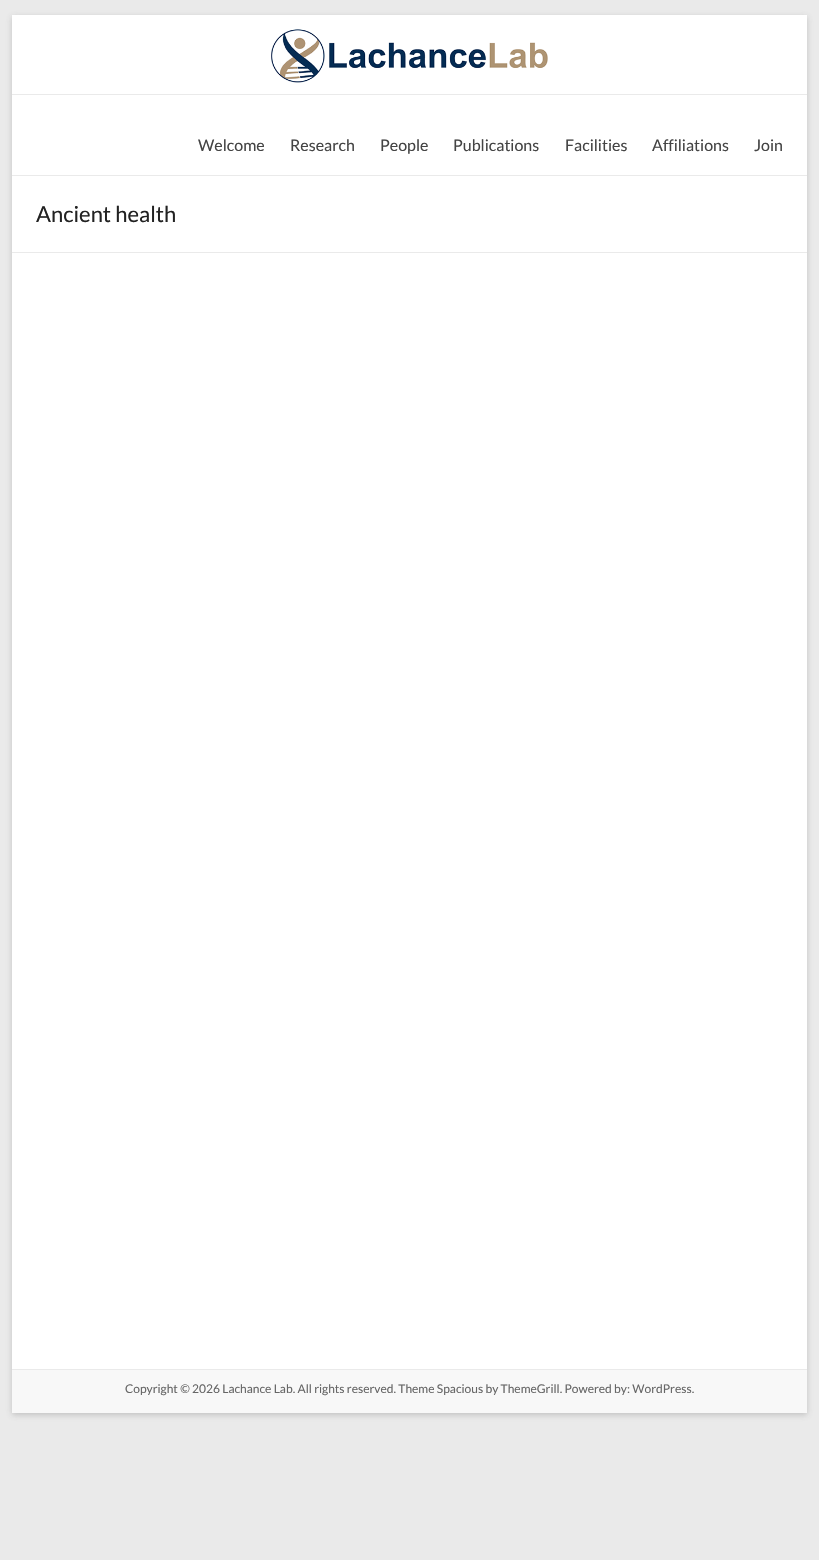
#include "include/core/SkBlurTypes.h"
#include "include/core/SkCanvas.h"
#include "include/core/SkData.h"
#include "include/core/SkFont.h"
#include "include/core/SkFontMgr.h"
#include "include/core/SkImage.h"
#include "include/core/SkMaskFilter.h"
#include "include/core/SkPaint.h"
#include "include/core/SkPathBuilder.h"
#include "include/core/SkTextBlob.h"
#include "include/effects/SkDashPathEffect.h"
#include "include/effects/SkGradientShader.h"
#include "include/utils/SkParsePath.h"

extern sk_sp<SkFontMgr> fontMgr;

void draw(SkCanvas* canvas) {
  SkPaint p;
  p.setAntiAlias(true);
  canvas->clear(SkColorSetRGB(234, 234, 234));
  p.setColor(SkColorSetARGB(77, 100, 100, 100));
  p.setMaskFilter(SkMaskFilter::MakeBlur(kNormal_SkBlurStyle, 3));
  canvas->drawRect(SkRect::MakeLTRB(12, 17, 807, 1415), p);
  p.setMaskFilter(nullptr);
  p.setColor(SK_ColorWHITE);
  canvas->drawRect(SkRect::MakeLTRB(12, 15, 807, 1369), p);
  canvas->drawImageRect(SkImages::DeferredFromEncodedData(SkData::MakeFromFileName("images/1.png")), SkRect::MakeLTRB(271, 29, 548, 83), SkSamplingOptions());
  p.setColor(SkColorSetRGB(234, 234, 234));
  canvas->drawRect(SkRect::MakeLTRB(12, 94, 807, 95), p);
  canvas->drawRect(SkRect::MakeLTRB(12, 175, 807, 176), p);
  canvas->drawRect(SkRect::MakeLTRB(12, 252, 807, 253), p);
  p.setColor(SkColorSetRGB(248, 248, 248));
  canvas->drawRect(SkRect::MakeLTRB(12, 1370, 807, 1413), p);
  p.setColor(SkColorSetRGB(234, 234, 234));
  canvas->drawRect(SkRect::MakeLTRB(12, 1369, 807, 1370), p);
  SkFont font1(fontMgr->matchFamilyStyle("Lato", SkFontStyle::Normal()), 16);
  font1.setSubpixel(true);
  p.setColor(SkColorSetRGB(68, 68, 68));
  canvas->drawString("Welcome", 198, 151, font1, p);
  canvas->drawString("Research", 290, 151, font1, p);
  canvas->drawString("People", 380, 151, font1, p);
  canvas->drawString("Publications", 453, 151, font1, p);
  canvas->drawString("Facilities", 565, 151, font1, p);
  canvas->drawString("Affiliations", 652, 151, font1, p);
  canvas->drawString("Join", 754, 151, font1, p);
  SkFont font2(fontMgr->matchFamilyStyle("Lato", SkFontStyle::Normal()), 22);
  font2.setSubpixel(true);
  p.setColor(SkColorSetRGB(34, 34, 34));
  canvas->drawString("Ancient health", 36, 222, font2, p);
  SkFont font3(fontMgr->matchFamilyStyle("Lato", SkFontStyle::Normal()), 12);
  font3.setSubpixel(true);
  p.setColor(SkColorSetRGB(102, 102, 102));
  canvas->drawString("Copyright © 2026 Lachance Lab. All rights reserved. Theme Spacious by ThemeGrill. Powered by: WordPress.", 125, 1393, font3, p);
}
